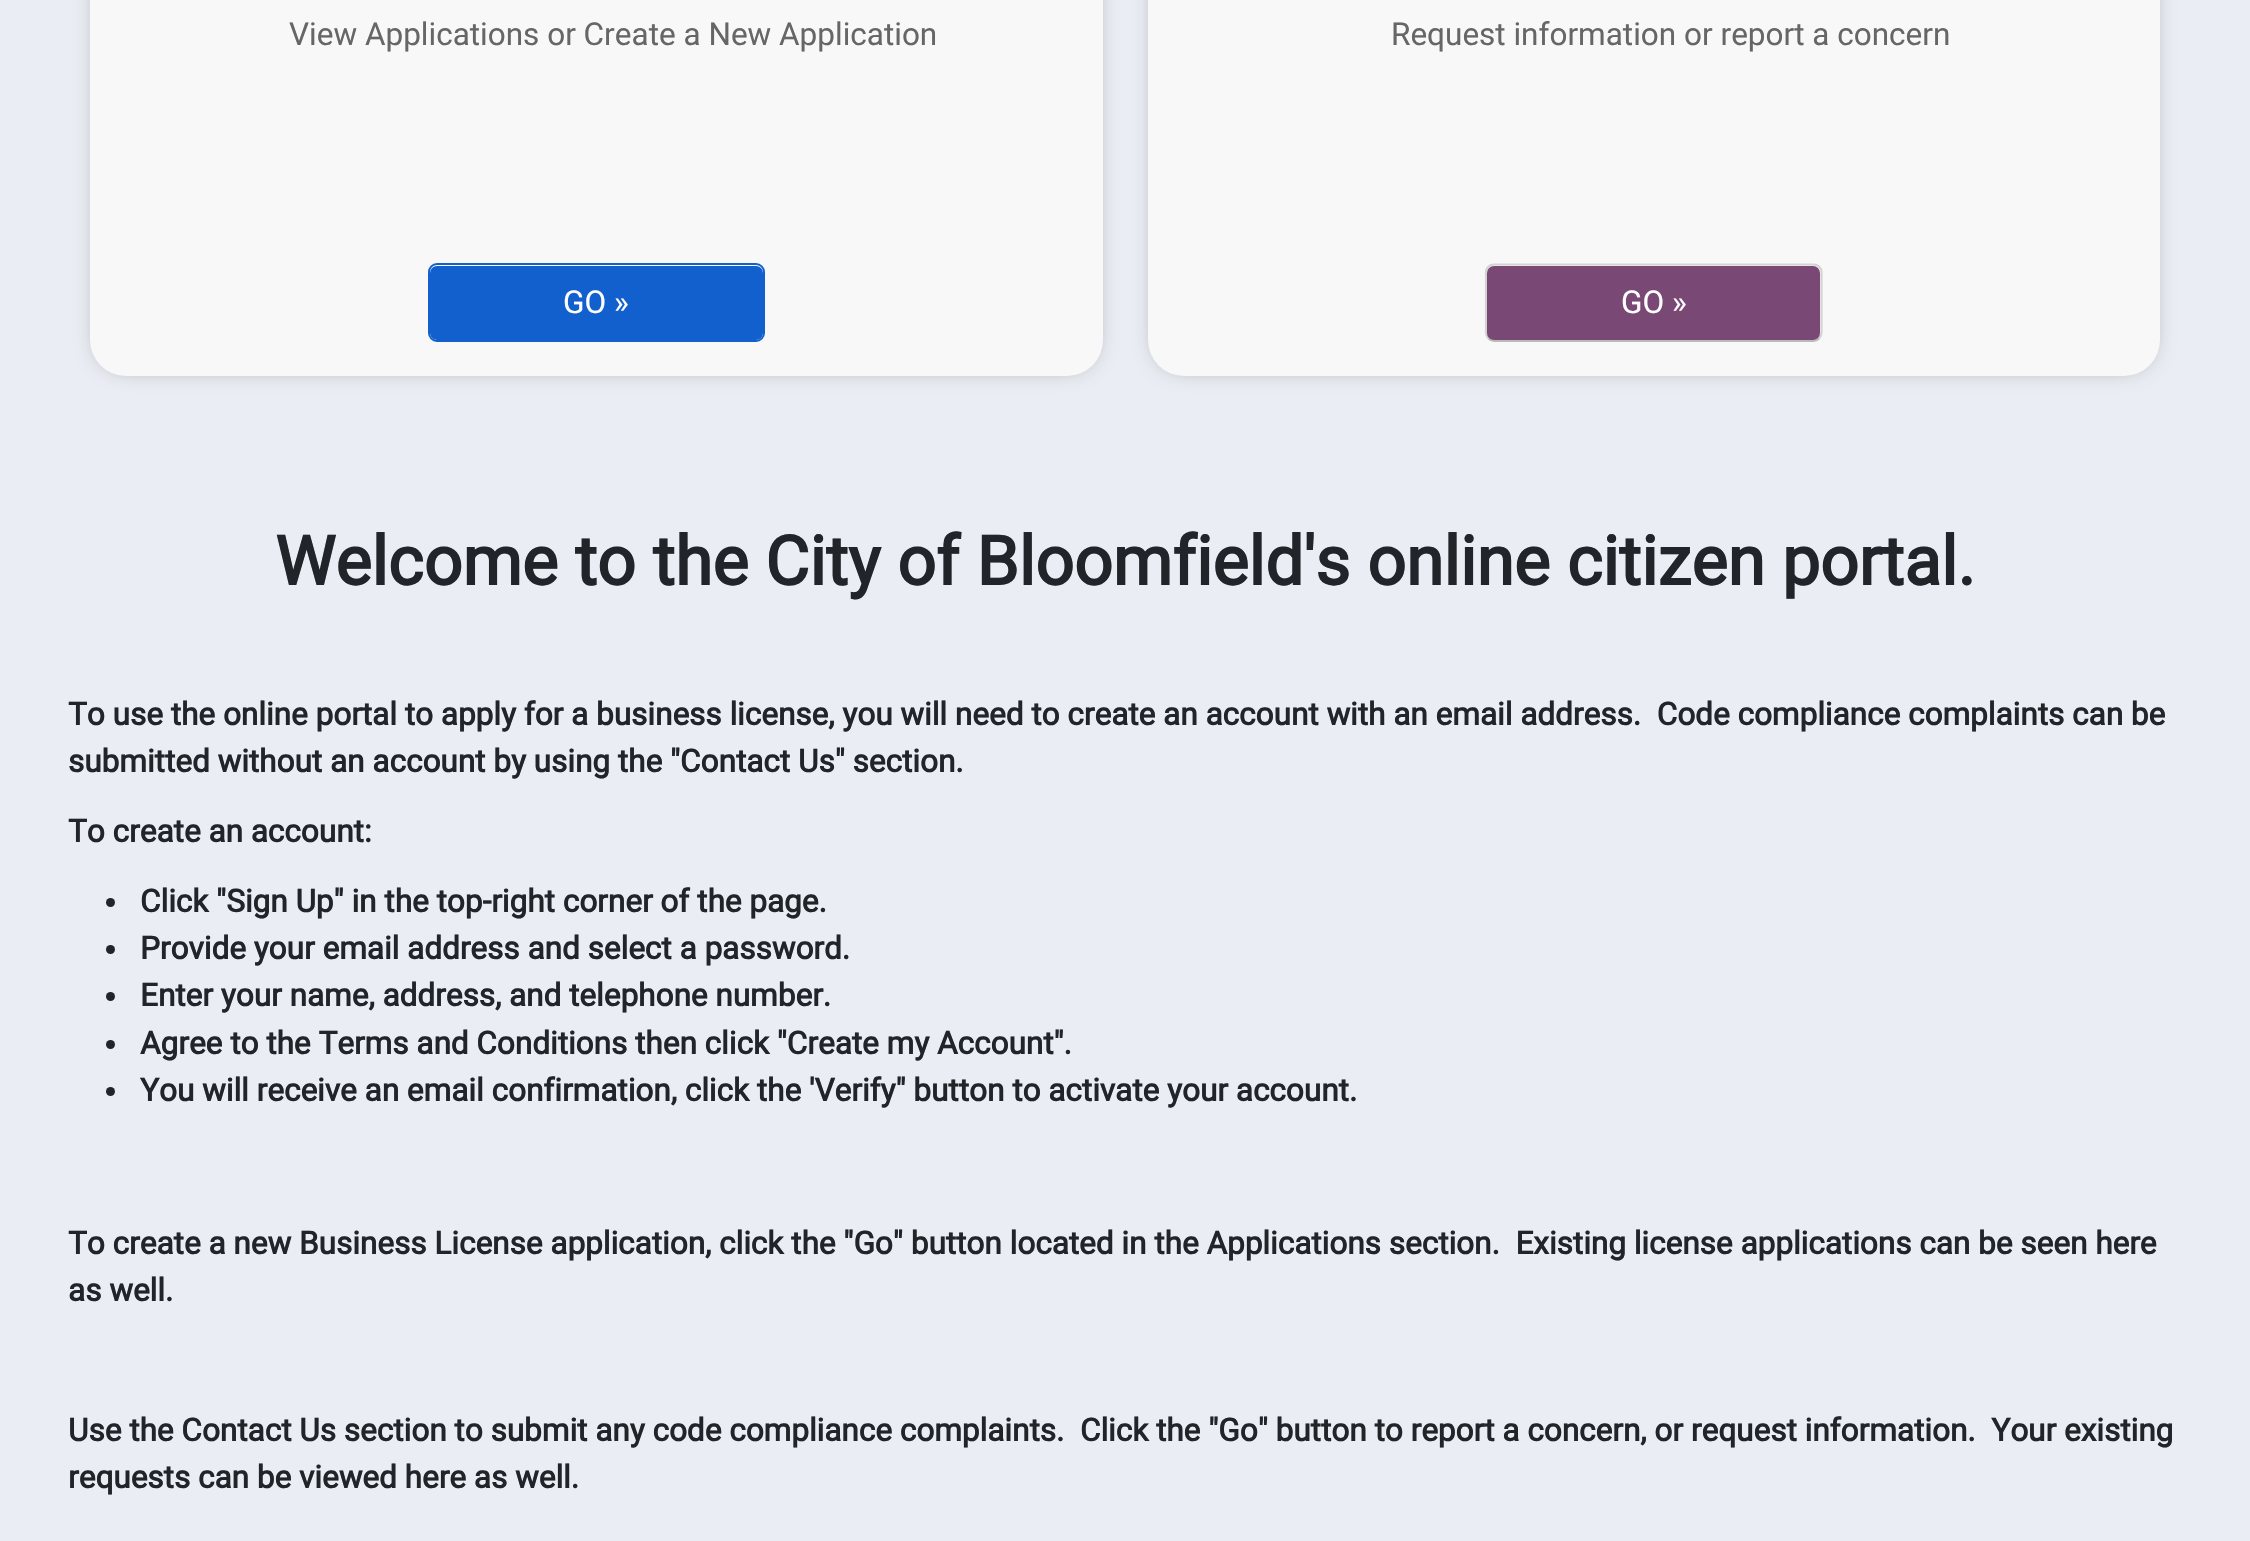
#include "include/core/SkBlurTypes.h"
#include "include/core/SkCanvas.h"
#include "include/core/SkData.h"
#include "include/core/SkFont.h"
#include "include/core/SkFontMgr.h"
#include "include/core/SkImage.h"
#include "include/core/SkMaskFilter.h"
#include "include/core/SkPaint.h"
#include "include/core/SkPathBuilder.h"
#include "include/core/SkTextBlob.h"
#include "include/effects/SkDashPathEffect.h"
#include "include/effects/SkGradientShader.h"
#include "include/utils/SkParsePath.h"

extern sk_sp<SkFontMgr> fontMgr;

void draw(SkCanvas* canvas) {
  SkPaint p;
  p.setAntiAlias(true);
  canvas->clear(SkColorSetRGB(234, 238, 244));
  p.setColor(SkColorSetARGB(102, 0, 0, 0));
  p.setMaskFilter(SkMaskFilter::MakeBlur(kNormal_SkBlurStyle, 11));
  canvas->drawRoundRect(SkRect::MakeLTRB(99, -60, 1094, 367), 27, 27, p);
  p.setMaskFilter(nullptr);
  p.setColor(SkColorSetRGB(248, 248, 248));
  canvas->drawRoundRect(SkRect::MakeLTRB(90, -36, 1103, 376), 36, 36, p);
  p.setColor(SkColorSetRGB(18, 96, 206));
  canvas->drawRoundRect(SkRect::MakeLTRB(430, 266, 763, 340), 7, 7, p);
  p.setStyle(SkPaint::kStroke_Style);
  p.setStrokeWidth(2);
  canvas->drawRoundRect(SkRect::MakeLTRB(429, 264, 764, 341), 8, 8, p);
  p.setStyle(SkPaint::kFill_Style);
  p.setColor(SkColorSetARGB(102, 0, 0, 0));
  p.setMaskFilter(SkMaskFilter::MakeBlur(kNormal_SkBlurStyle, 11));
  canvas->drawRoundRect(SkRect::MakeLTRB(1157, -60, 2151, 367), 27, 27, p);
  p.setMaskFilter(nullptr);
  p.setColor(SkColorSetRGB(248, 248, 248));
  canvas->drawRoundRect(SkRect::MakeLTRB(1148, -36, 2160, 376), 36, 36, p);
  p.setColor(SkColorSetRGB(121, 72, 117));
  canvas->drawRoundRect(SkRect::MakeLTRB(1487, 266, 1820, 340), 7, 7, p);
  p.setStyle(SkPaint::kStroke_Style);
  p.setStrokeWidth(2.2f);
  p.setColor(SkColorSetARGB(64, 0, 0, 0));
  canvas->drawPath(SkPathBuilder().moveTo(1819, 338.5f).cubicTo(1817.5f, 340, 1815.5f, 341, 1813.5f, 341).lineTo(1494, 341).cubicTo(1492, 341, 1490, 340, 1488.5f, 338.5f).detach(), p);
  p.setColor(SkColorSetARGB(38, 0, 0, 0));
  canvas->drawPath(SkPathBuilder().moveTo(1488.5f, 338.5f).cubicTo(1487, 337, 1486, 335, 1486, 333).lineTo(1486, 272).cubicTo(1486, 270, 1487, 268, 1488.5f, 266.5f).cubicTo(1490, 265, 1492, 264.5f, 1494, 264.5f).lineTo(1813.5f, 264.5f).cubicTo(1815.5f, 264.5f, 1817.5f, 265, 1819, 266.5f).cubicTo(1820.5f, 268, 1821.5f, 270, 1821.5f, 272).lineTo(1821.5f, 333).cubicTo(1821.5f, 335, 1820.5f, 337, 1819, 338.5f).detach(), p);
  p.setStyle(SkPaint::kFill_Style);
  p.setColor(SkColorSetRGB(33, 37, 41));
  canvas->drawCircle(110.5f, 902.5f, 4.5f, p);
  canvas->drawCircle(110.5f, 949.5f, 4.5f, p);
  canvas->drawCircle(110.5f, 996.5f, 4.5f, p);
  canvas->drawCircle(110.5f, 1044.5f, 4.5f, p);
  canvas->drawCircle(110.5f, 1091.5f, 4.5f, p);
  SkFont font1(fontMgr->matchFamilyStyle("Roboto", SkFontStyle::Normal()), 31.5f);
  font1.setSubpixel(true);
  p.setColor(SkColorSetRGB(102, 102, 102));
  canvas->drawString("View Applications or Create a New Application", 289, 45, font1, p);
  p.setColor(SK_ColorWHITE);
  canvas->drawString("GO »", 563, 313, font1, p);
  p.setColor(SkColorSetRGB(102, 102, 102));
  canvas->drawString("Request information or report a concern", 1391, 45, font1, p);
  p.setColor(SK_ColorWHITE);
  canvas->drawString("GO »", 1621, 313, font1, p);
  SkFont font2(fontMgr->matchFamilyStyle("Roboto", SkFontStyle::Bold()), 67.95f);
  font2.setSubpixel(true);
  p.setColor(SkColorSetRGB(33, 37, 41));
  canvas->drawString("Welcome to the City of Bloomfield's online citizen portal.", 275, 585, font2, p);
  SkFont font3(fontMgr->matchFamilyStyle("Roboto", SkFontStyle::Bold()), 31.5f);
  font3.setSubpixel(true);
  canvas->drawString("To use the online portal to apply for a business license, you will need to create an account with an email address.  Code compliance complaints can be", 68, 725, font3, p);
  canvas->drawString("submitted without an account by using the \"Contact Us\" section.", 68, 772, font3, p);
  canvas->drawString("To create an account:", 68, 842, font3, p);
  canvas->drawString("Click \"Sign Up\" in the top-right corner of the page.", 140, 912, font3, p);
  canvas->drawString("Provide your email address and select a password.", 140, 959, font3, p);
  canvas->drawString("Enter your name, address, and telephone number.", 140, 1006, font3, p);
  canvas->drawString("Agree to the Terms and Conditions then click \"Create my Account\".", 140, 1054, font3, p);
  canvas->drawString("You will receive an email confirmation, click the 'Verify\" button to activate your account.", 140, 1101, font3, p);
  canvas->drawString("To create a new Business License application, click the \"Go\" button located in the Applications section.  Existing license applications can be seen here", 68, 1254, font3, p);
  canvas->drawString("as well.", 68, 1301, font3, p);
  canvas->drawString("Use the Contact Us section to submit any code compliance complaints.  Click the \"Go\" button to report a concern, or request information.  Your existing", 68, 1441, font3, p);
  canvas->drawString("requests can be viewed here as well.", 68, 1488, font3, p);
}
